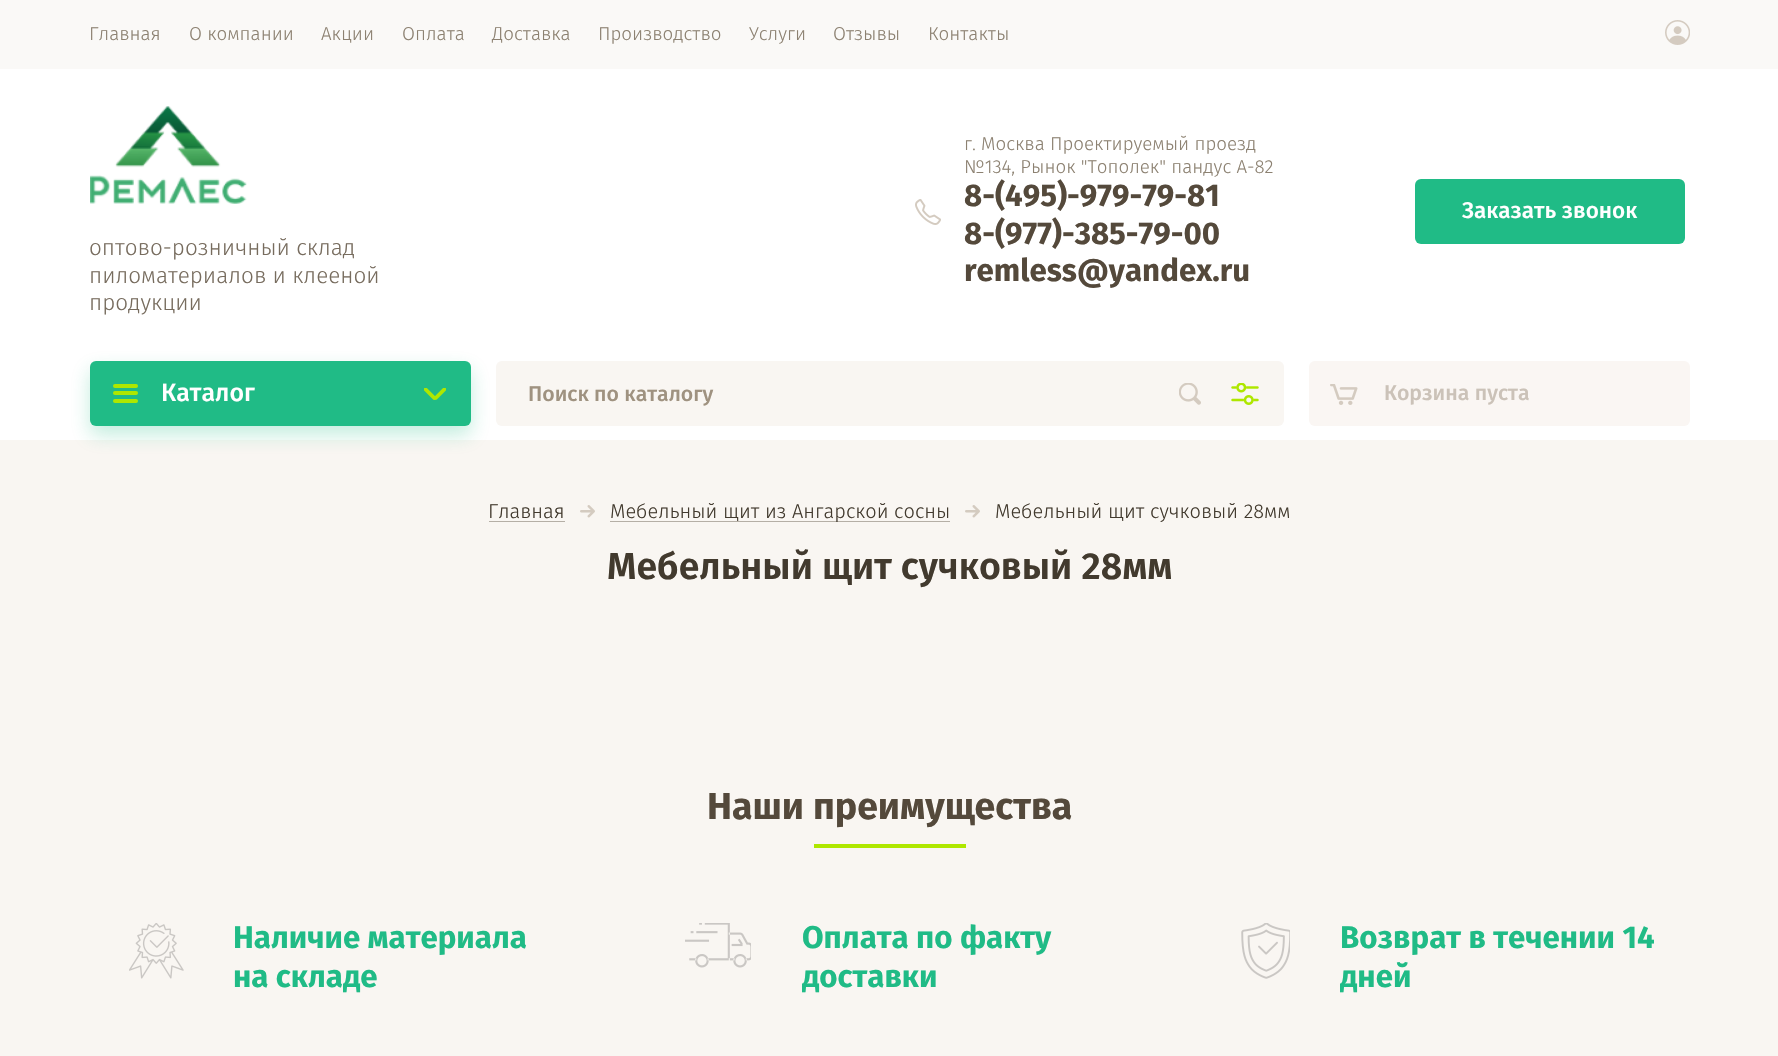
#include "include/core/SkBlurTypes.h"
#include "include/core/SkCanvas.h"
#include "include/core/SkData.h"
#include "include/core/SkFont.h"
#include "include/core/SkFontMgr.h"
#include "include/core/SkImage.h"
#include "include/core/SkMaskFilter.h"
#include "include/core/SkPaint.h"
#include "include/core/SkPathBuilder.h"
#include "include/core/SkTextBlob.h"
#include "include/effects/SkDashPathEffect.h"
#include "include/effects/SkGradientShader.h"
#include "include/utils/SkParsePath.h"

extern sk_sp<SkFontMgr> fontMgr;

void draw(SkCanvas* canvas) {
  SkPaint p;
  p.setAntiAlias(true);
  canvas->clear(SkColorSetRGB(249, 246, 242));
  p.setColor(SK_ColorWHITE);
  canvas->drawRect(SkRect::MakeLTRB(0, 69, 1778, 440), p);
  p.setColor(SkColorSetRGB(250, 249, 247));
  canvas->drawRect(SkRect::MakeLTRB(0, 0, 1778, 69), p);
  canvas->drawImageRect(SkImages::DeferredFromEncodedData(SkData::MakeFromFileName("images/1.png")), SkRect::MakeLTRB(1665, 20, 1690, 45), SkSamplingOptions());
  canvas->drawImageRect(SkImages::DeferredFromEncodedData(SkData::MakeFromFileName("images/2.png")), SkRect::MakeLTRB(90, 106, 247, 204), SkSamplingOptions());
  canvas->drawImageRect(SkImages::DeferredFromEncodedData(SkData::MakeFromFileName("images/3.png")), SkRect::MakeLTRB(915, 199, 941, 225), SkSamplingOptions());
  p.setColor(SkColorSetRGB(32, 187, 134));
  canvas->drawRoundRect(SkRect::MakeLTRB(1415, 179, 1685, 244), 6, 6, p);
  p.setColor(SkColorSetARGB(69, 32, 187, 134));
  p.setMaskFilter(SkMaskFilter::MakeBlur(kNormal_SkBlurStyle, 9.5f));
  canvas->drawRoundRect(SkRect::MakeLTRB(90, 370, 471, 435), 6, 6, p);
  p.setMaskFilter(nullptr);
  p.setColor(SkColorSetRGB(32, 187, 134));
  canvas->drawRoundRect(SkRect::MakeLTRB(90, 361, 471, 426), 6, 6, p);
  p.setColor(SkColorSetRGB(174, 231, 0));
  canvas->drawRoundRect(SkRect::MakeLTRB(113, 391, 138, 395), 2, 2, p);
  canvas->drawRoundRect(SkRect::MakeLTRB(113, 384, 138, 388), 2, 2, p);
  canvas->drawRoundRect(SkRect::MakeLTRB(113, 399, 138, 403), 2, 2, p);
  canvas->drawImageRect(SkImages::DeferredFromEncodedData(SkData::MakeFromFileName("images/4.png")), SkRect::MakeLTRB(424, 388, 446, 400), SkSamplingOptions());
  p.setColor(SkColorSetRGB(249, 246, 242));
  canvas->drawRoundRect(SkRect::MakeLTRB(496, 361, 1284, 426), 6, 6, p);
  canvas->drawImageRect(SkImages::DeferredFromEncodedData(SkData::MakeFromFileName("images/5.png")), SkRect::MakeLTRB(1179, 383, 1201, 405), SkSamplingOptions());
  canvas->drawImageRect(SkImages::DeferredFromEncodedData(SkData::MakeFromFileName("images/6.png")), SkRect::MakeLTRB(1231, 383, 1259, 405), SkSamplingOptions());
  p.setColor(SkColorSetRGB(250, 246, 243));
  canvas->drawRoundRect(SkRect::MakeLTRB(1309, 361, 1690, 426), 6, 6, p);
  canvas->drawImageRect(SkImages::DeferredFromEncodedData(SkData::MakeFromFileName("images/7.png")), SkRect::MakeLTRB(1330, 384, 1358, 405), SkSamplingOptions());
  p.setColor(SkColorSetRGB(181, 175, 166));
  canvas->drawRect(SkRect::MakeLTRB(489, 521, 565, 522), p);
  canvas->drawImageRect(SkImages::DeferredFromEncodedData(SkData::MakeFromFileName("images/8.png")), SkRect::MakeLTRB(580, 505, 595, 518), SkSamplingOptions());
  canvas->drawRect(SkRect::MakeLTRB(610, 521, 950, 522), p);
  canvas->drawImageRect(SkImages::DeferredFromEncodedData(SkData::MakeFromFileName("images/8.png")), SkRect::MakeLTRB(965, 505, 980, 518), SkSamplingOptions());
  p.setColor(SkColorSetRGB(174, 231, 0));
  canvas->drawRect(SkRect::MakeLTRB(814, 844, 966, 848), p);
  canvas->drawImageRect(SkImages::DeferredFromEncodedData(SkData::MakeFromFileName("images/9.png")), SkRect::MakeLTRB(129, 923, 184, 979), SkSamplingOptions());
  canvas->drawImageRect(SkImages::DeferredFromEncodedData(SkData::MakeFromFileName("images/10.png")), SkRect::MakeLTRB(685, 923, 751, 968), SkSamplingOptions());
  canvas->drawImageRect(SkImages::DeferredFromEncodedData(SkData::MakeFromFileName("images/11.png")), SkRect::MakeLTRB(1241, 923, 1290, 979), SkSamplingOptions());
  SkFont font1(fontMgr->matchFamilyStyle("Fira Sans", SkFontStyle(300, SkFontStyle::kNormal_Width, SkFontStyle::kUpright_Slant)), 18.75f);
  font1.setSubpixel(true);
  p.setColor(SkColorSetRGB(140, 129, 113));
  canvas->drawString("Главная", 89, 40, font1, p);
  canvas->drawString("О компании", 189, 40, font1, p);
  canvas->drawString("Акции", 321, 40, font1, p);
  canvas->drawString("Оплата", 402, 40, font1, p);
  canvas->drawString("Доставка", 492, 40, font1, p);
  canvas->drawString("Производство", 598, 40, font1, p);
  canvas->drawString("Услуги", 749, 40, font1, p);
  canvas->drawString("Отзывы", 833, 40, font1, p);
  canvas->drawString("Контакты", 928, 40, font1, p);
  SkFont font2(fontMgr->matchFamilyStyle("Fira Sans", SkFontStyle(300, SkFontStyle::kNormal_Width, SkFontStyle::kUpright_Slant)), 22.5f);
  font2.setSubpixel(true);
  p.setColor(SkColorSetRGB(119, 108, 94));
  canvas->drawString("оптово-розничный cклад", 89, 255, font2, p);
  canvas->drawString("пиломатериалов и клееной", 89, 283, font2, p);
  canvas->drawString("продукции", 89, 310, font2, p);
  p.setColor(SkColorSetRGB(140, 129, 113));
  canvas->drawString("г. Москва Проектируемый проезд", 964, 150, font1, p);
  canvas->drawString("№134, Рынок \"Тополек\" пандус А-82", 964, 173, font1, p);
  SkFont font3(fontMgr->matchFamilyStyle("Fira Sans", SkFontStyle::Bold()), 31.25f);
  font3.setSubpixel(true);
  p.setColor(SkColorSetRGB(84, 73, 59));
  canvas->drawString("8-(495)-979-79-81", 964, 206, font3, p);
  canvas->drawString("8-(977)-385-79-00", 964, 244, font3, p);
  canvas->drawString("remless@yandex.ru", 964, 281, font3, p);
  SkFont font4(fontMgr->matchFamilyStyle("Fira Sans", SkFontStyle(500, SkFontStyle::kNormal_Width, SkFontStyle::kUpright_Slant)), 22.5f);
  font4.setSubpixel(true);
  p.setColor(SK_ColorWHITE);
  canvas->drawString("Заказать звонок", 1462, 218, font4, p);
  SkFont font5(fontMgr->matchFamilyStyle("Fira Sans", SkFontStyle(500, SkFontStyle::kNormal_Width, SkFontStyle::kUpright_Slant)), 25);
  font5.setSubpixel(true);
  canvas->drawString("Каталог", 161, 401, font5, p);
  SkFont font6(fontMgr->matchFamilyStyle("Fira Sans", SkFontStyle(500, SkFontStyle::kNormal_Width, SkFontStyle::kUpright_Slant)), 21.25f);
  font6.setSubpixel(true);
  p.setColor(SkColorSetRGB(159, 146, 128));
  canvas->drawString("Поиск по каталогу", 528, 401, font6, p);
  p.setColor(SkColorSetRGB(203, 194, 184));
  canvas->drawString("Корзина пуста", 1384, 400, font6, p);
  SkFont font7(fontMgr->matchFamilyStyle("Fira Sans", SkFontStyle(300, SkFontStyle::kNormal_Width, SkFontStyle::kUpright_Slant)), 20);
  font7.setSubpixel(true);
  p.setColor(SkColorSetRGB(66, 58, 46));
  canvas->drawString("Главная", 488, 518, font7, p);
  canvas->drawString("Мебельный щит из Ангарской сосны", 610, 518, font7, p);
  canvas->drawString("Мебельный щит сучковый 28мм", 995, 518, font7, p);
  SkFont font8(fontMgr->matchFamilyStyle("Fira Sans", SkFontStyle(600, SkFontStyle::kNormal_Width, SkFontStyle::kUpright_Slant)), 37.5f);
  font8.setSubpixel(true);
  canvas->drawString("Мебельный щит сучковый 28мм", 607, 579, font8, p);
  SkFont font9(fontMgr->matchFamilyStyle("Fira Sans", SkFontStyle::Bold()), 37.5f);
  font9.setSubpixel(true);
  p.setColor(SkColorSetRGB(84, 73, 59));
  canvas->drawString("Наши преимущества", 707, 819, font9, p);
  p.setColor(SkColorSetRGB(32, 187, 134));
  canvas->drawString("Наличие материала", 233, 948, font3, p);
  canvas->drawString("на складе", 233, 987, font3, p);
  canvas->drawString("Оплата по факту", 802, 948, font3, p);
  canvas->drawString("доставки", 802, 987, font3, p);
  canvas->drawString("Возврат в течении 14", 1340, 948, font3, p);
  canvas->drawString("дней", 1340, 987, font3, p);
}
